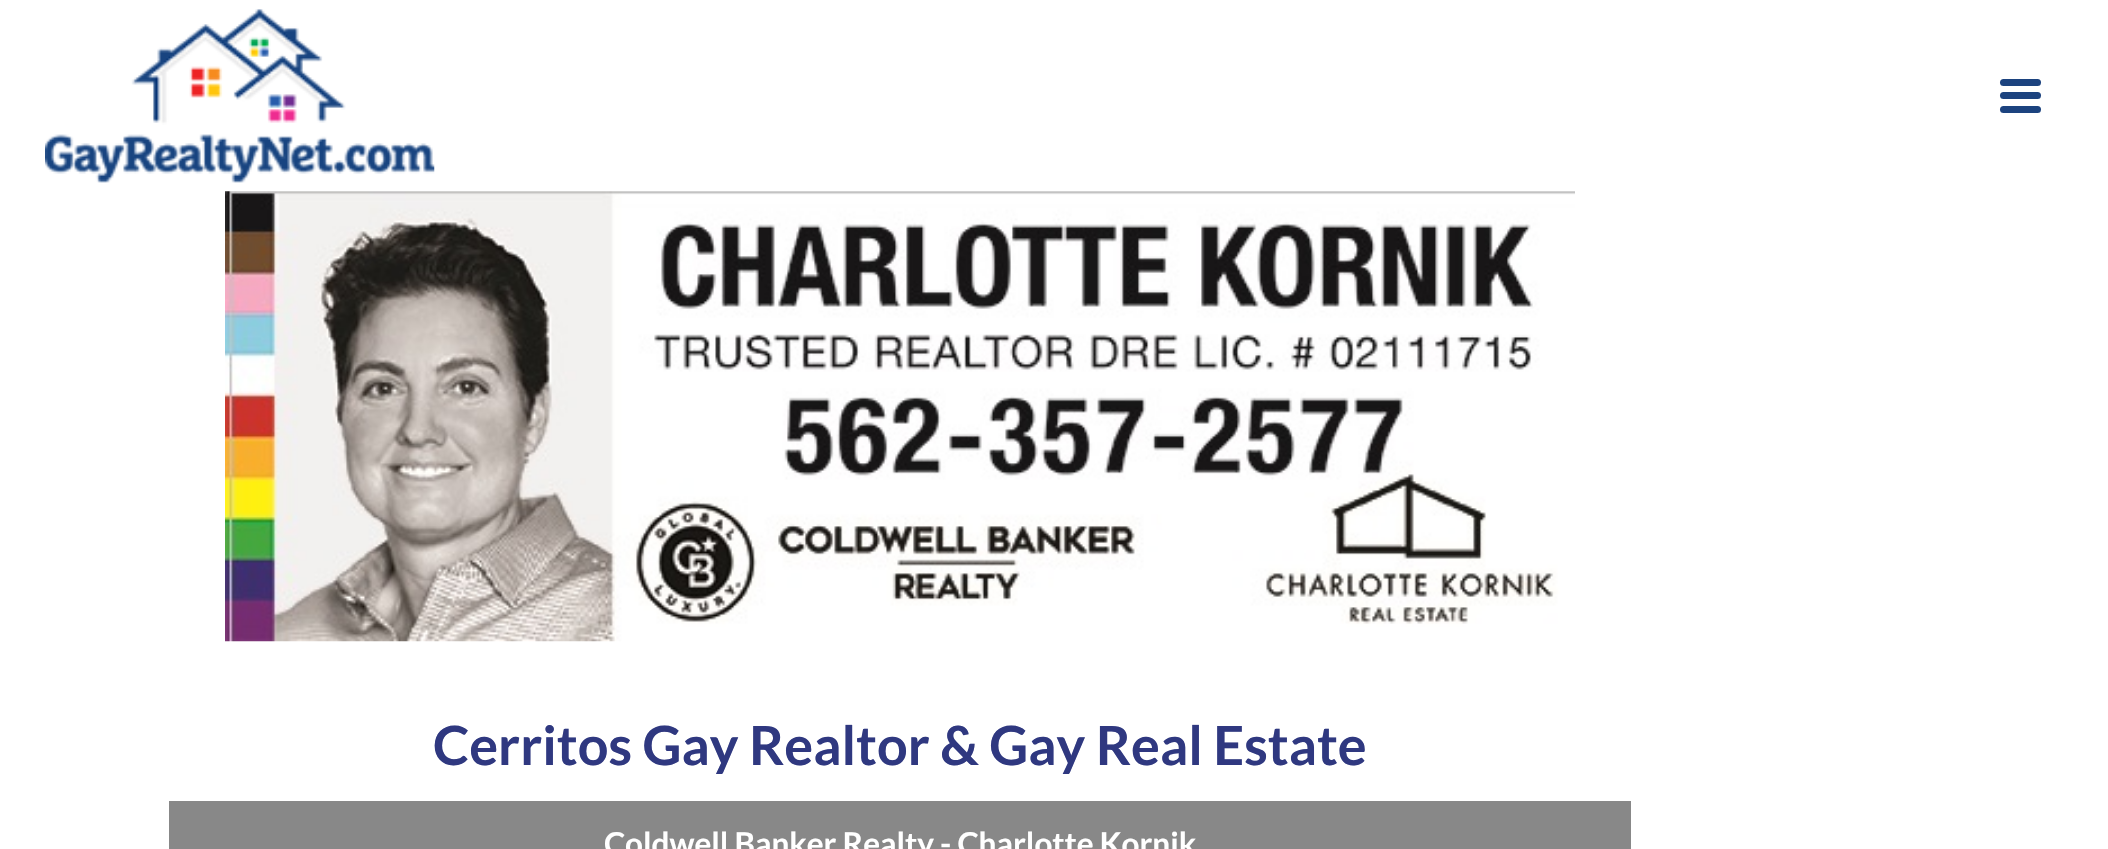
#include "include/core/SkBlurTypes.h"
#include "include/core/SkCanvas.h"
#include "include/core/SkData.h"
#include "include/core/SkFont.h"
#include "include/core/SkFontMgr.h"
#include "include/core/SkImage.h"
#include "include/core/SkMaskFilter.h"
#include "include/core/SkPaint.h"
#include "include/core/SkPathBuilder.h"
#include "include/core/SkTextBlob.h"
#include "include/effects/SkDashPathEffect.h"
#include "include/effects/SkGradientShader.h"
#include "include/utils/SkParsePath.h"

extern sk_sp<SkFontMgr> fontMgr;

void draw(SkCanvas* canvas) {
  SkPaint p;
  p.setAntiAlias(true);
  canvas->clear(SK_ColorWHITE);
  canvas->drawImageRect(SkImages::DeferredFromEncodedData(SkData::MakeFromFileName("images/1.png")), SkRect::MakeLTRB(45, 9, 435, 183), SkSamplingOptions());
  p.setColor(SkColorSetRGB(28, 67, 127));
  canvas->drawRoundRect(SkRect::MakeLTRB(2000, 79, 2041, 86), 3.5f, 3.5f, p);
  canvas->drawRoundRect(SkRect::MakeLTRB(2000, 92, 2041, 99), 3.5f, 3.5f, p);
  canvas->drawRoundRect(SkRect::MakeLTRB(2000, 106, 2041, 113), 3.5f, 3.5f, p);
  canvas->drawImageRect(SkImages::DeferredFromEncodedData(SkData::MakeFromFileName("images/2.png")), SkRect::MakeLTRB(225, 191, 1575, 642), SkSamplingOptions());
  p.setColor(SkColorSetRGB(136, 136, 136));
  canvas->drawRect(SkRect::MakeLTRB(169, 801, 1631, 849), p);
  SkFont font1(fontMgr->matchFamilyStyle("Lato", SkFontStyle::Bold()), 54);
  font1.setSubpixel(true);
  p.setColor(SkColorSetRGB(47, 56, 128));
  canvas->drawString("Cerritos Gay Realtor & Gay Real Estate", 433, 765, font1, p);
  SkFont font2(fontMgr->matchFamilyStyle("Lato", SkFontStyle::Bold()), 31.5f);
  font2.setSubpixel(true);
  p.setColor(SK_ColorWHITE);
  canvas->drawString("Coldwell Banker Realty - Charlotte Kornik", 604, 855, font2, p);
}
